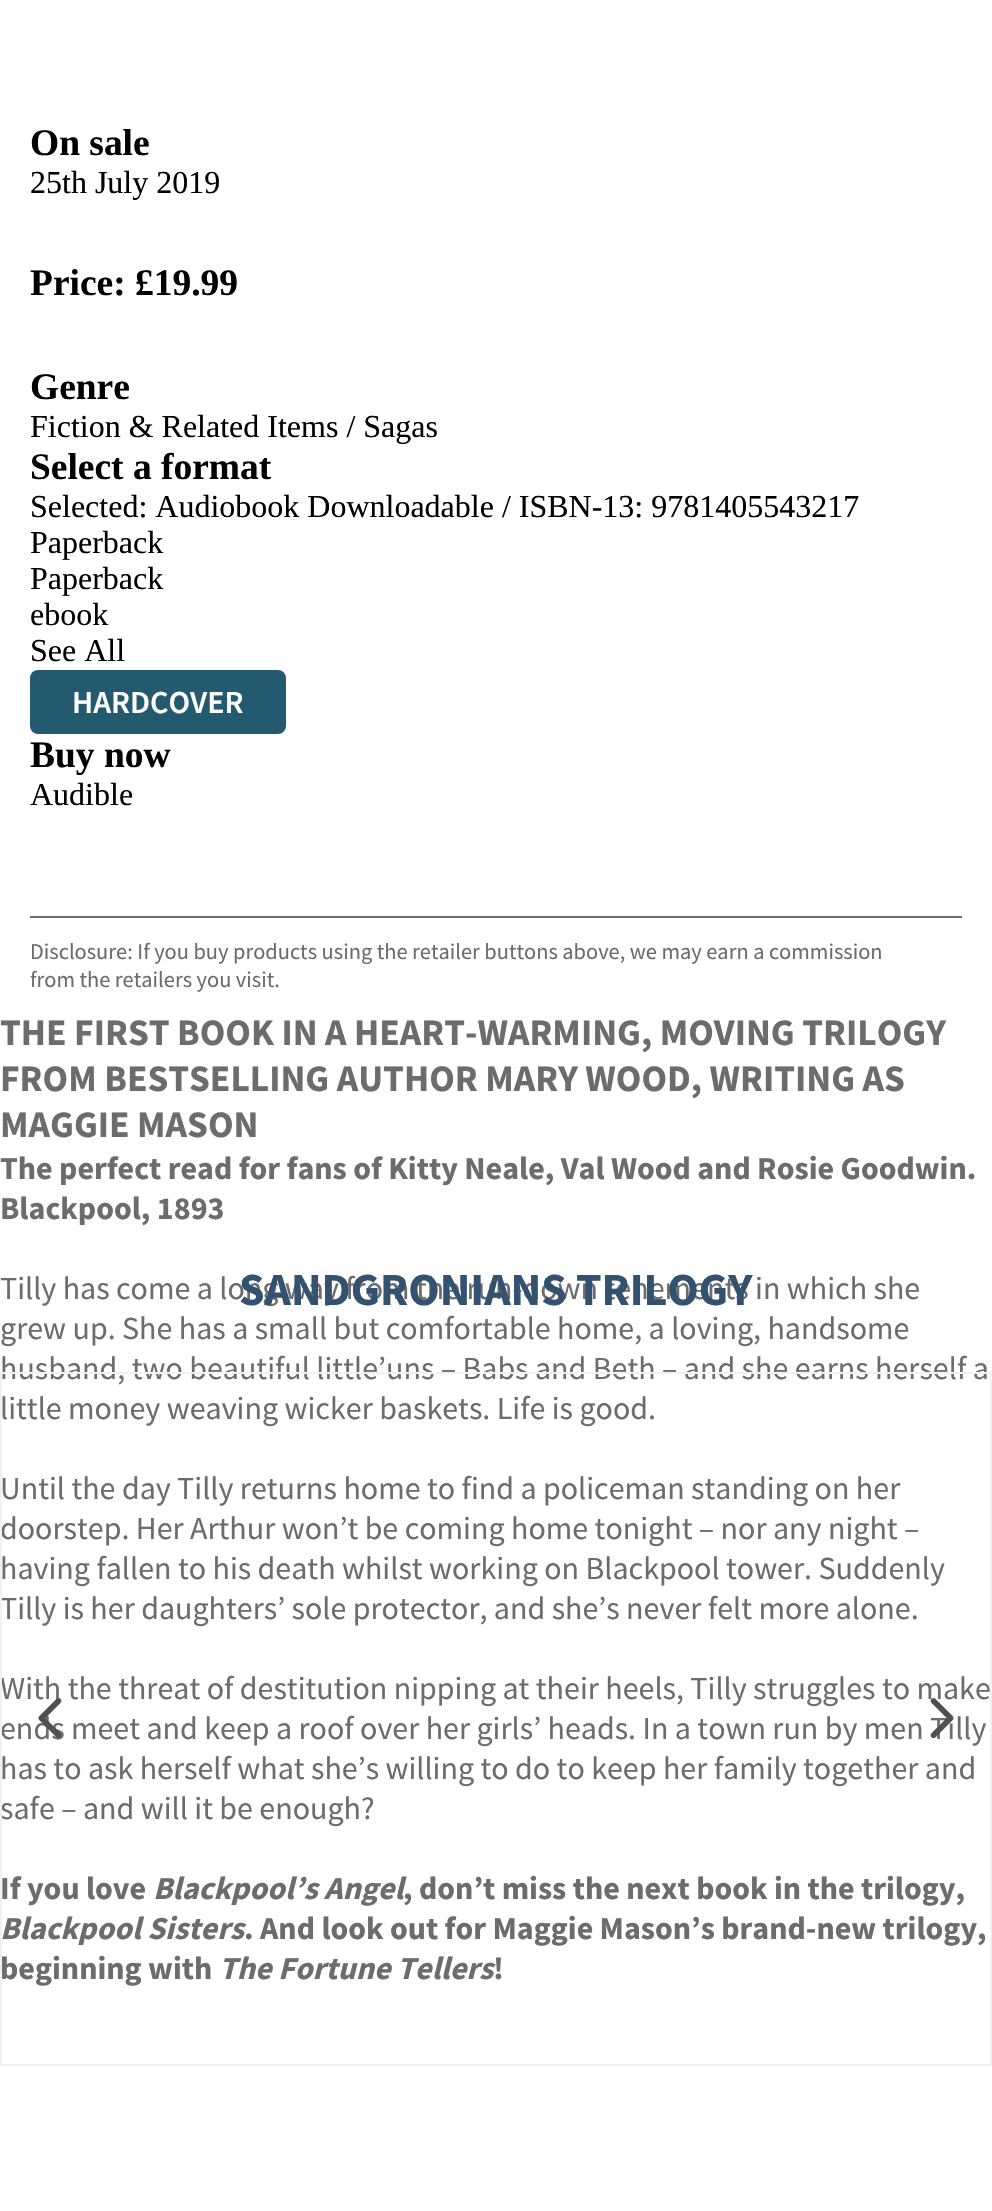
#include "include/core/SkBlurTypes.h"
#include "include/core/SkCanvas.h"
#include "include/core/SkData.h"
#include "include/core/SkFont.h"
#include "include/core/SkFontMgr.h"
#include "include/core/SkImage.h"
#include "include/core/SkMaskFilter.h"
#include "include/core/SkPaint.h"
#include "include/core/SkPathBuilder.h"
#include "include/core/SkTextBlob.h"
#include "include/effects/SkDashPathEffect.h"
#include "include/effects/SkGradientShader.h"
#include "include/utils/SkParsePath.h"

extern sk_sp<SkFontMgr> fontMgr;

void draw(SkCanvas* canvas) {
  SkPaint p;
  p.setAntiAlias(true);
  canvas->clear(SK_ColorWHITE);
  p.setColor(SkColorSetRGB(36, 90, 112));
  canvas->drawRoundRect(SkRect::MakeLTRB(31, 671, 285, 733), 7, 7, p);
  p.setStyle(SkPaint::kStroke_Style);
  p.setStrokeWidth(2);
  canvas->drawRoundRect(SkRect::MakeLTRB(31, 671, 285, 733), 7, 7, p);
  p.setStyle(SkPaint::kFill_Style);
  p.setColor(SkColorSetRGB(109, 108, 108));
  canvas->drawRect(SkRect::MakeLTRB(30, 916, 962, 918), p);
  SkFont font1(fontMgr->matchFamilyStyle("Liberation Serif", SkFontStyle::Bold()), 37.45f);
  font1.setSubpixel(true);
  p.setColor(SK_ColorBLACK);
  canvas->drawString("On sale", 30, 155, font1, p);
  SkFont font2(fontMgr->matchFamilyStyle("Liberation Serif", SkFontStyle::Normal()), 32);
  font2.setSubpixel(true);
  canvas->drawString("25th July 2019", 30, 193, font2, p);
  canvas->drawString("Price: £19.99", 30, 295, font1, p);
  canvas->drawString("Genre", 30, 399, font1, p);
  canvas->drawString("Fiction & Related Items / Sagas", 30, 437, font2, p);
  canvas->drawString("Select a format", 30, 479, font1, p);
  canvas->drawString("Selected: Audiobook Downloadable / ISBN-13: 9781405543217", 30, 517, font2, p);
  canvas->drawString("Paperback", 30, 553, font2, p);
  canvas->drawString("Paperback", 30, 589, font2, p);
  canvas->drawString("ebook", 30, 625, font2, p);
  canvas->drawString("See All", 30, 661, font2, p);
  SkFont font3(fontMgr->matchFamilyStyle("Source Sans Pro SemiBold", SkFontStyle(600, SkFontStyle::kNormal_Width, SkFontStyle::kUpright_Slant)), 32);
  font3.setSubpixel(true);
  p.setColor(SK_ColorWHITE);
  canvas->drawString("HARDCOVER", 72, 713, font3, p);
  p.setColor(SK_ColorBLACK);
  canvas->drawString("Buy now", 30, 767, font1, p);
  canvas->drawString("Audible", 30, 805, font2, p);
  SkFont font4(fontMgr->matchFamilyStyle("Source Sans Pro", SkFontStyle::Normal()), 22.4f);
  font4.setSubpixel(true);
  p.setColor(SkColorSetRGB(109, 108, 108));
  canvas->drawString("Disclosure: If you buy products using the retailer buttons above, we may earn a commission", 30, 959, font4, p);
  canvas->drawString("from the retailers you visit.", 30, 987, font4, p);
  SkFont font5(fontMgr->matchFamilyStyle("Source Sans Pro", SkFontStyle::Bold()), 37.45f);
  font5.setSubpixel(true);
  canvas->drawString("THE FIRST BOOK IN A HEART-WARMING, MOVING TRILOGY", 0, 1045, font5, p);
  canvas->drawString("FROM BESTSELLING AUTHOR MARY WOOD, WRITING AS", 0, 1091, font5, p);
  canvas->drawString("MAGGIE MASON", 0, 1137, font5, p);
  SkFont font6(fontMgr->matchFamilyStyle("Source Sans Pro", SkFontStyle::Bold()), 32);
  font6.setSubpixel(true);
  canvas->drawString("The perfect read for fans of Kitty Neale, Val Wood and Rosie Goodwin.", 0, 1179, font6, p);
  canvas->drawString("Blackpool, 1893", 0, 1219, font6, p);
  SkFont font7(fontMgr->matchFamilyStyle("Source Sans Pro", SkFontStyle::Normal()), 32);
  font7.setSubpixel(true);
  canvas->drawString("Tilly has come a long way from the run-down tenements in which she", 0, 1299, font7, p);
  canvas->drawString("grew up. She has a small but comfortable home, a loving, handsome", 0, 1339, font7, p);
  canvas->drawString("husband, two beautiful little’uns – Babs and Beth – and she earns herself a", 0, 1379, font7, p);
  canvas->drawString("little money weaving wicker baskets. Life is good.", 0, 1419, font7, p);
  canvas->drawString("Until the day Tilly returns home to find a policeman standing on her", 0, 1499, font7, p);
  canvas->drawString("doorstep. Her Arthur won’t be coming home tonight – nor any night –", 0, 1539, font7, p);
  canvas->drawString("having fallen to his death whilst working on Blackpool tower. Suddenly", 0, 1579, font7, p);
  canvas->drawString("Tilly is her daughters’ sole protector, and she’s never felt more alone.", 0, 1619, font7, p);
  canvas->drawString("With the threat of destitution nipping at their heels, Tilly struggles to make", 0, 1699, font7, p);
  canvas->drawString("ends meet and keep a roof over her girls’ heads. In a town run by men Tilly", 0, 1739, font7, p);
  canvas->drawString("has to ask herself what she’s willing to do to keep her family together and", 0, 1779, font7, p);
  canvas->drawString("safe – and will it be enough?", 0, 1819, font7, p);
  canvas->drawString("If you love", 0, 1899, font6, p);
  SkFont font8(fontMgr->matchFamilyStyle("Source Sans Pro", SkFontStyle::BoldItalic()), 32);
  font8.setSubpixel(true);
  canvas->drawString("Blackpool’s Angel", 153, 1899, font8, p);
  canvas->drawString(", don’t miss the next book in the trilogy,", 403, 1899, font6, p);
  canvas->drawString("Blackpool Sisters", 0, 1939, font8, p);
  canvas->drawString(". And look out for Maggie Mason’s brand-new trilogy,", 244, 1939, font6, p);
  canvas->drawString("beginning with", 0, 1979, font6, p);
  canvas->drawString("The Fortune Tellers", 219, 1979, font8, p);
  canvas->drawString("!", 493, 1979, font6, p);
  SkFont font9(fontMgr->matchFamilyStyle("Source Sans Pro", SkFontStyle::Bold()), 46);
  font9.setSubpixel(true);
  p.setColor(SkColorSetRGB(51, 82, 111));
  canvas->drawString("SANDGRONIANS TRILOGY", 239, 1305, font9, p);
  p.setStyle(SkPaint::kStroke_Style);
  p.setColor(SkColorSetRGB(241, 241, 241));
  canvas->drawRect(SkRect::MakeLTRB(1, 1373, 991, 2065), p);
  canvas->drawImageRect(SkImages::DeferredFromEncodedData(SkData::MakeFromFileName("images/1.png")), SkRect::MakeLTRB(38, 1698, 62, 1738), SkSamplingOptions());
  canvas->drawImageRect(SkImages::DeferredFromEncodedData(SkData::MakeFromFileName("images/2.png")), SkRect::MakeLTRB(930, 1698, 954, 1738), SkSamplingOptions());
}
